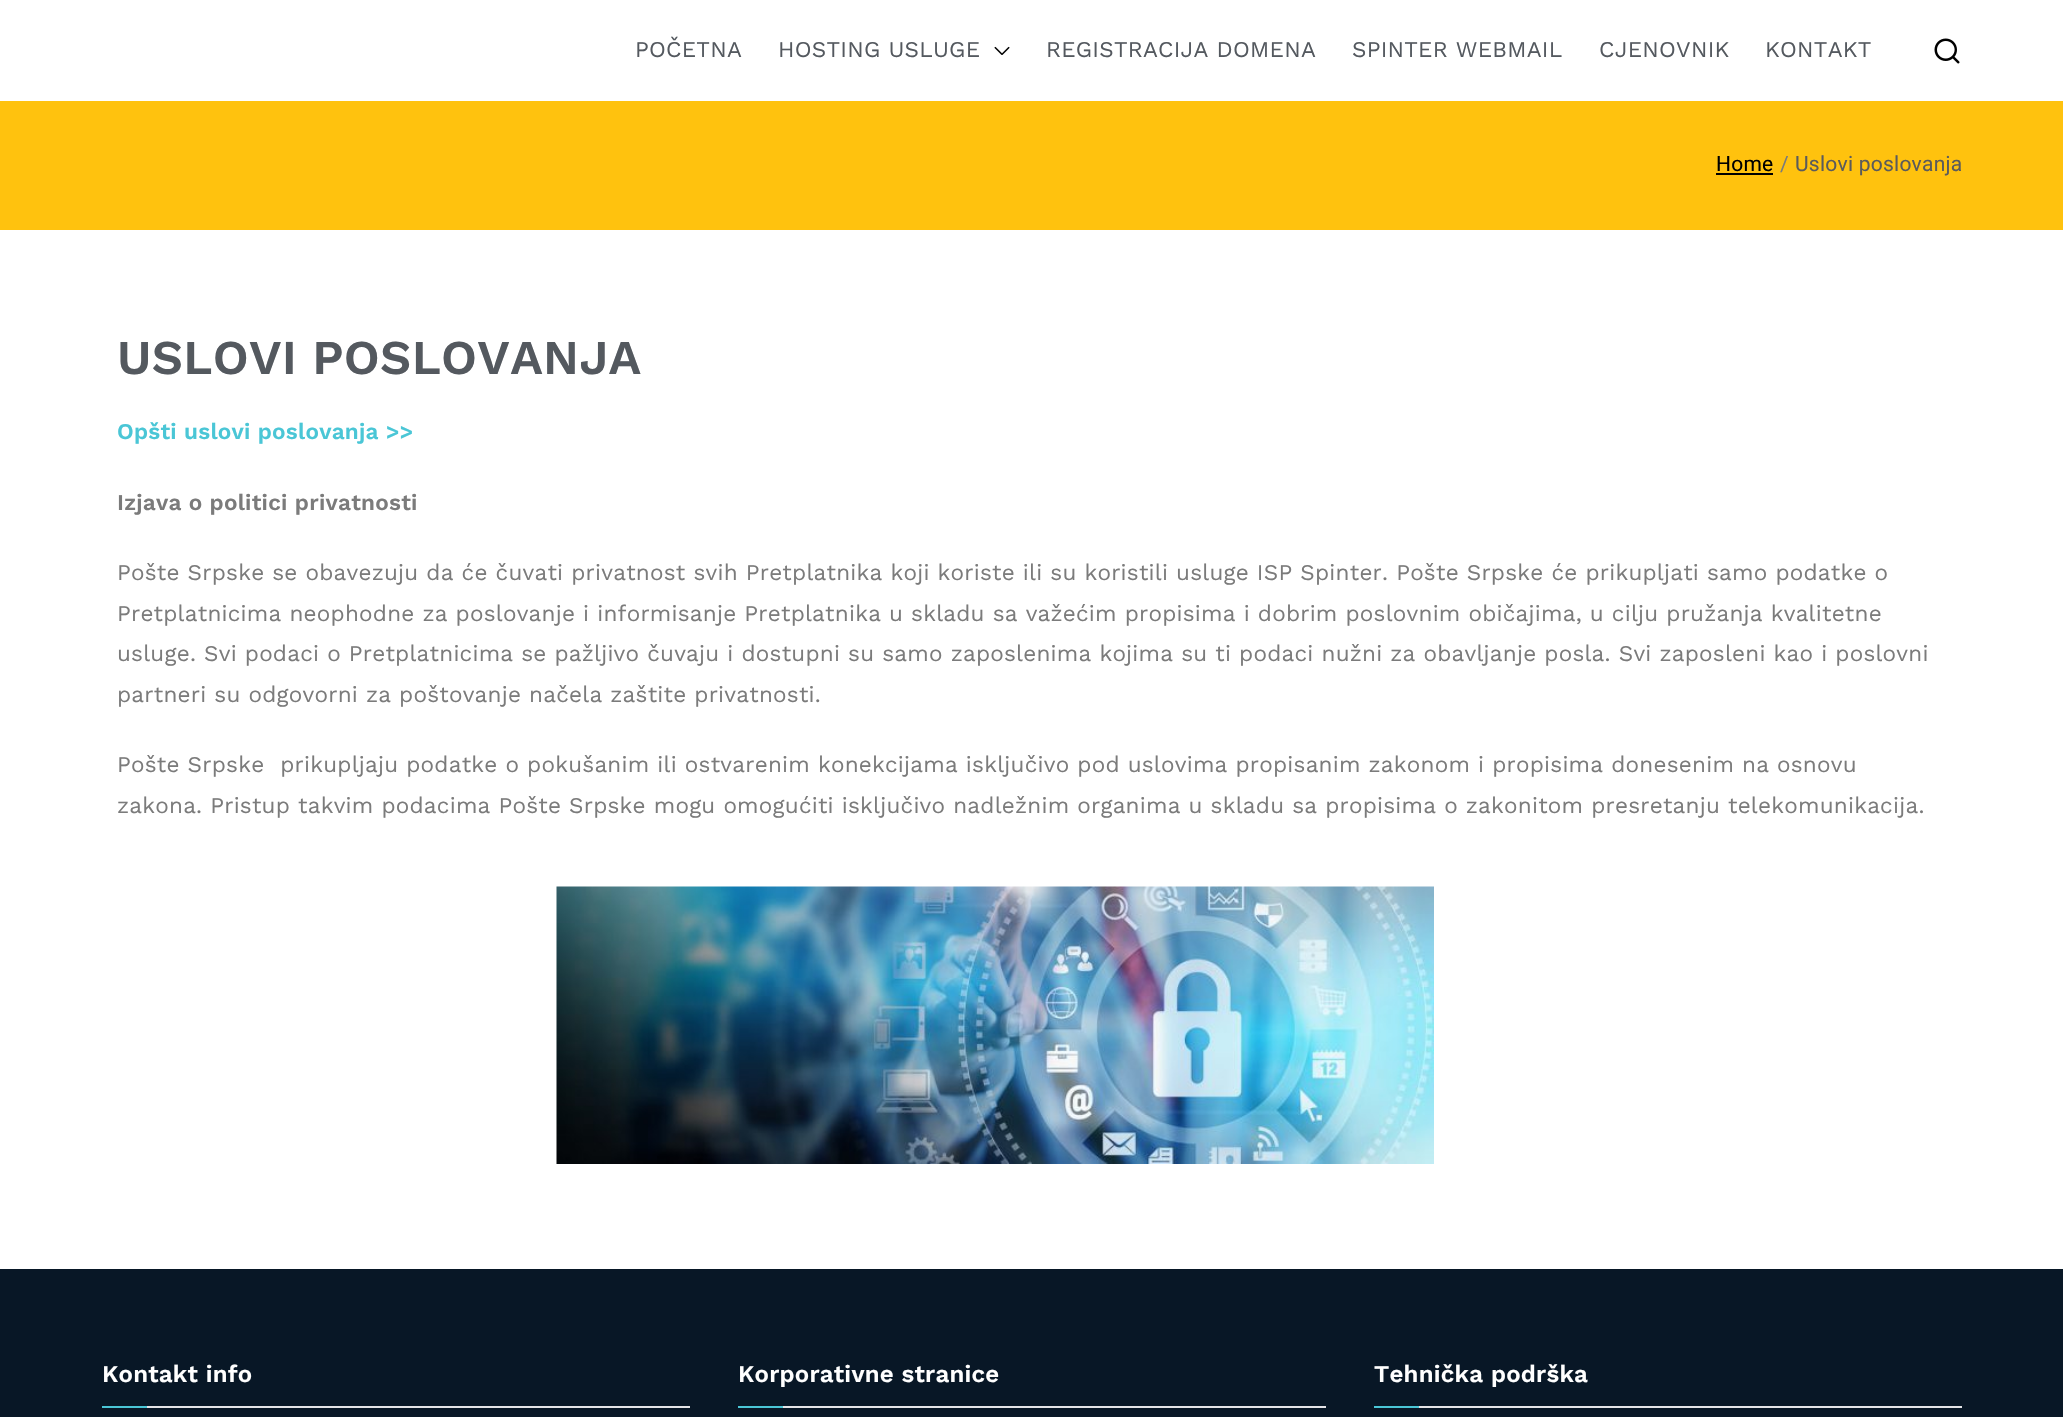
#include "include/core/SkBlurTypes.h"
#include "include/core/SkCanvas.h"
#include "include/core/SkData.h"
#include "include/core/SkFont.h"
#include "include/core/SkFontMgr.h"
#include "include/core/SkImage.h"
#include "include/core/SkMaskFilter.h"
#include "include/core/SkPaint.h"
#include "include/core/SkPathBuilder.h"
#include "include/core/SkTextBlob.h"
#include "include/effects/SkDashPathEffect.h"
#include "include/effects/SkGradientShader.h"
#include "include/utils/SkParsePath.h"

extern sk_sp<SkFontMgr> fontMgr;

void draw(SkCanvas* canvas) {
  SkPaint p;
  p.setAntiAlias(true);
  auto spacedText = [&](const char* s, float x, float y, const SkFont& font, const SkPaint& ink, float letter, float word) {
    std::vector<SkGlyphID> glyphs(font.countText(s, strlen(s), SkTextEncoding::kUTF8));
    std::vector<float> xs(glyphs.size());
    font.textToGlyphs(s, strlen(s), SkTextEncoding::kUTF8, glyphs);
    font.getXPos(glyphs, xs, x);
    float extra = 0;
    for (size_t i = 0; i < glyphs.size(); i++) {
      xs[i] += extra;
      extra += letter + word * (glyphs[i] == font.unicharToGlyph(' '));
    }
    canvas->drawTextBlob(SkTextBlob::MakeFromPosHGlyphs(glyphs, xs, y, font), 0, 0, ink);
  };
  canvas->clear(SK_ColorWHITE);
  canvas->drawImageRect(SkImages::DeferredFromEncodedData(SkData::MakeFromFileName("images/1.png")), SkRect::MakeLTRB(994, 46, 1010, 55), SkSamplingOptions());
  canvas->drawImageRect(SkImages::DeferredFromEncodedData(SkData::MakeFromFileName("images/2.png")), SkRect::MakeLTRB(1934, 38, 1960, 64), SkSamplingOptions());
  p.setColor(SkColorSetRGB(255, 194, 14));
  canvas->drawRect(SkRect::MakeLTRB(0, 101, 2063, 230), p);
  p.setColor(SK_ColorBLACK);
  canvas->drawRect(SkRect::MakeLTRB(1716, 173, 1773, 175), p);
  canvas->drawImageRect(SkImages::DeferredFromEncodedData(SkData::MakeFromFileName("images/3.png")), SkRect::MakeLTRB(556, 886, 1434, 1164), SkSamplingOptions());
  p.setColor(SkColorSetRGB(8, 23, 38));
  canvas->drawRect(SkRect::MakeLTRB(0, 1269, 2063, 1417), p);
  p.setColor(SkColorSetRGB(228, 228, 231));
  canvas->drawRect(SkRect::MakeLTRB(147, 1406, 690, 1408), p);
  p.setColor(SkColorSetRGB(74, 198, 214));
  canvas->drawRect(SkRect::MakeLTRB(102, 1406, 147, 1408), p);
  p.setColor(SkColorSetRGB(228, 228, 231));
  canvas->drawRect(SkRect::MakeLTRB(783, 1406, 1326, 1408), p);
  p.setColor(SkColorSetRGB(74, 198, 214));
  canvas->drawRect(SkRect::MakeLTRB(738, 1406, 783, 1408), p);
  p.setColor(SkColorSetRGB(228, 228, 231));
  canvas->drawRect(SkRect::MakeLTRB(1419, 1406, 1962, 1408), p);
  p.setColor(SkColorSetRGB(74, 198, 214));
  canvas->drawRect(SkRect::MakeLTRB(1374, 1406, 1419, 1408), p);
  SkFont font1(fontMgr->matchFamilyStyle("Work Sans", SkFontStyle::Normal()), 22.5f);
  font1.setSubpixel(true);
  p.setColor(SkColorSetRGB(84, 89, 95));
  spacedText("POČETNA", 635, 57, font1, p, 0.24f, 0);
  spacedText("HOSTING USLUGE", 778, 57, font1, p, 0.24f, 0);
  spacedText("REGISTRACIJA DOMENA", 1046, 57, font1, p, 0.24f, 0);
  spacedText("SPINTER WEBMAIL", 1352, 57, font1, p, 0.24f, 0);
  spacedText("CJENOVNIK", 1599, 57, font1, p, 0.24f, 0);
  spacedText("KONTAKT", 1765, 57, font1, p, 0.24f, 0);
  SkFont font2(fontMgr->matchFamilyStyle("Roboto", SkFontStyle::Normal()), 21);
  font2.setSubpixel(true);
  p.setColor(SK_ColorBLACK);
  spacedText("Home", 1716, 171, font2, p, 0.24f, 0);
  p.setColor(SkColorSetRGB(123, 123, 123));
  spacedText("/", 1780, 171, font2, p, 0.24f, 0);
  p.setColor(SkColorSetRGB(91, 91, 91));
  spacedText("Uslovi poslovanja", 1795, 171, font2, p, 0.24f, 0);
  SkFont font3(fontMgr->matchFamilyStyle("Work Sans", SkFontStyle(600, SkFontStyle::kNormal_Width, SkFontStyle::kUpright_Slant)), 48.6f);
  font3.setSubpixel(true);
  p.setColor(SkColorSetRGB(84, 89, 95));
  spacedText("USLOVI POSLOVANJA", 117, 374, font3, p, 0.24f, 0);
  SkFont font4(fontMgr->matchFamilyStyle("Work Sans", SkFontStyle(600, SkFontStyle::kNormal_Width, SkFontStyle::kUpright_Slant)), 22.5f);
  font4.setSubpixel(true);
  p.setColor(SkColorSetRGB(74, 198, 214));
  spacedText("Opšti uslovi poslovanja >>", 117, 439, font4, p, 0.24f, 0);
  p.setColor(SkColorSetRGB(123, 123, 123));
  spacedText("Izjava o politici privatnosti", 117, 510, font4, p, 0.24f, 0);
  spacedText("Pošte Srpske se obavezuju da će čuvati privatnost svih Pretplatnika koji koriste ili su koristili usluge ISP Spinter. Pošte Srpske će prikupljati samo podatke o", 117, 580, font1, p, 0.24f, 0);
  spacedText("Pretplatnicima neophodne za poslovanje i informisanje Pretplatnika u skladu sa važećim propisima i dobrim poslovnim običajima, u cilju pružanja kvalitetne", 117, 621, font1, p, 0.24f, 0);
  spacedText("usluge. Svi podaci o Pretplatnicima se pažljivo čuvaju i dostupni su samo zaposlenima kojima su ti podaci nužni za obavljanje posla. Svi zaposleni kao i poslovni", 117, 661, font1, p, 0.24f, 0);
  spacedText("partneri su odgovorni za poštovanje načela zaštite privatnosti.", 117, 702, font1, p, 0.24f, 0);
  spacedText("Pošte Srpske  prikupljaju podatke o pokušanim ili ostvarenim konekcijama isključivo pod uslovima propisanim zakonom i propisima donesenim na osnovu", 117, 772, font1, p, 0.24f, 0);
  spacedText("zakona. Pristup takvim podacima Pošte Srpske mogu omogućiti isključivo nadležnim organima u skladu sa propisima o zakonitom presretanju telekomunikacija.", 117, 813, font1, p, 0.24f, 0);
  SkFont font5(fontMgr->matchFamilyStyle("Work Sans", SkFontStyle(600, SkFontStyle::kNormal_Width, SkFontStyle::kUpright_Slant)), 24);
  font5.setSubpixel(true);
  p.setColor(SK_ColorWHITE);
  spacedText("Kontakt info", 102, 1382, font5, p, 0.24f, 0);
  spacedText("Korporativne stranice", 738, 1382, font5, p, 0.24f, 0);
  spacedText("Tehnička podrška", 1374, 1382, font5, p, 0.24f, 0);
}
